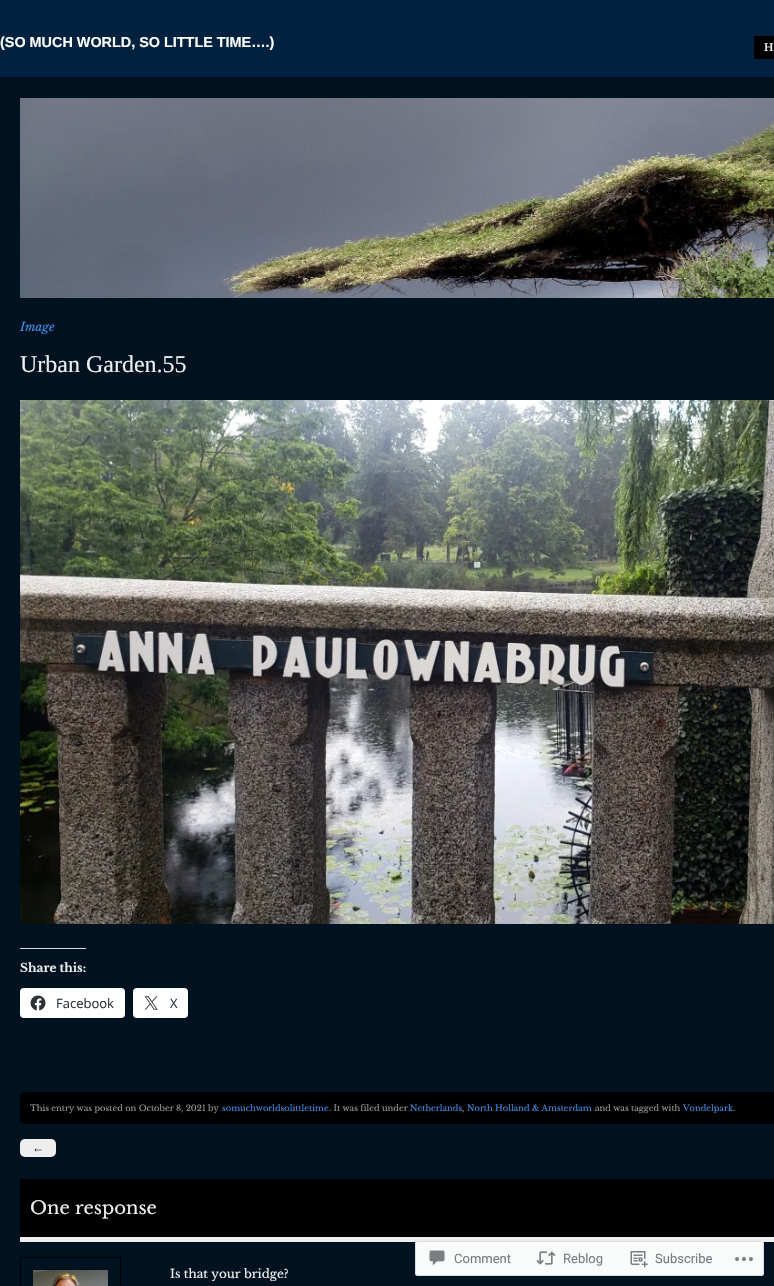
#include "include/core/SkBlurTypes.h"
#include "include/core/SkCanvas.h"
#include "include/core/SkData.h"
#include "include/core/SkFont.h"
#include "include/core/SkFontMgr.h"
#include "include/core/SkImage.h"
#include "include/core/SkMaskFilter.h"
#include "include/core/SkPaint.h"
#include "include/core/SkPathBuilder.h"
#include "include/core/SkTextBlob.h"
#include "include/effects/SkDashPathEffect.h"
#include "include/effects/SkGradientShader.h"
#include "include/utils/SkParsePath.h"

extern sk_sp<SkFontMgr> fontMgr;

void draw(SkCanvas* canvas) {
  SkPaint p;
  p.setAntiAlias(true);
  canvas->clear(SkColorSetRGB(0, 34, 63));
  p.setColor(SK_ColorBLACK);
  canvas->drawRect(SkRect::MakeLTRB(754, 36, 774, 59), p);
  p.setColor(SkColorSetRGB(0, 17, 32));
  canvas->drawRect(SkRect::MakeLTRB(0, 77, 774, 1286), p);
  canvas->drawImageRect(SkImages::DeferredFromEncodedData(SkData::MakeFromFileName("images/1.png")), SkRect::MakeLTRB(20, 98, 774, 298), SkSamplingOptions());
  canvas->drawImageRect(SkImages::DeferredFromEncodedData(SkData::MakeFromFileName("images/2.png")), SkRect::MakeLTRB(20, 400, 774, 924), SkSamplingOptions());
  p.setColor(SkColorSetRGB(220, 220, 222));
  canvas->drawRect(SkRect::MakeLTRB(20, 948, 86, 949), p);
  canvas->save();
  canvas->clipRect(SkRect::MakeLTRB(20, 318, 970, 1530));
  p.setStyle(SkPaint::kStroke_Style);
  p.setStrokeWidth(1);
  p.setColor(SkColorSetRGB(0, 15, 28));
  canvas->drawRoundRect(SkRect::MakeLTRB(19.5f, 987.5f, 125.5f, 1018.5f), 4.5f, 4.5f, p);
  canvas->restore();
  p.setStyle(SkPaint::kFill_Style);
  p.setColor(SK_ColorWHITE);
  canvas->drawRoundRect(SkRect::MakeLTRB(20, 988, 125, 1018), 4, 4, p);
  canvas->drawImageRect(SkImages::DeferredFromEncodedData(SkData::MakeFromFileName("images/3.png")), SkRect::MakeLTRB(30, 995, 46, 1011), SkSamplingOptions());
  p.setStyle(SkPaint::kStroke_Style);
  p.setColor(SkColorSetRGB(0, 15, 28));
  canvas->drawRoundRect(SkRect::MakeLTRB(132.5f, 987.5f, 188.5f, 1018.5f), 4.5f, 4.5f, p);
  p.setStyle(SkPaint::kFill_Style);
  p.setColor(SK_ColorWHITE);
  canvas->drawRoundRect(SkRect::MakeLTRB(133, 988, 188, 1018), 4, 4, p);
  canvas->drawImageRect(SkImages::DeferredFromEncodedData(SkData::MakeFromFileName("images/4.png")), SkRect::MakeLTRB(144, 996, 158, 1010), SkSamplingOptions());
  p.setColor(SK_ColorBLACK);
  canvas->drawRoundRect(SkRect::MakeLTRB(20, 1092, 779, 1124), 5, 5, p);
  p.setColor(SkColorSetRGB(238, 238, 238));
  canvas->drawRoundRect(SkRect::MakeLTRB(20, 1139, 56, 1157), 5, 5, p);
  p.setColor(SK_ColorBLACK);
  canvas->drawRect(SkRect::MakeLTRB(20, 1179, 774, 1237), p);
  p.setColor(SkColorSetRGB(238, 238, 238));
  canvas->drawRect(SkRect::MakeLTRB(20, 1237, 774, 1242), p);
  p.setStyle(SkPaint::kStroke_Style);
  p.setColor(SK_ColorBLACK);
  canvas->drawRect(SkRect::MakeLTRB(20.5f, 1257.5f, 120.5f, 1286.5f), p);
  canvas->drawImageRect(SkImages::DeferredFromEncodedData(SkData::MakeFromFileName("images/5.png")), SkRect::MakeLTRB(33, 1270, 108, 1286), SkSamplingOptions());
  p.setStyle(SkPaint::kFill_Style);
  p.setColor(SkColorSetARGB(250, 255, 255, 255));
  canvas->drawRoundRect(SkRect::MakeLTRB(415, 1241, 764, 1276), 3, 3, p);
  p.setStyle(SkPaint::kStroke_Style);
  p.setColor(SkColorSetARGB(250, 220, 220, 222));
  canvas->drawRoundRect(SkRect::MakeLTRB(415.5f, 1241.5f, 763.5f, 1275.5f), 2.5f, 2.5f, p);
  canvas->drawImageRect(SkImages::DeferredFromEncodedData(SkData::MakeFromFileName("images/6.png")), SkRect::MakeLTRB(429, 1250, 445, 1266), SkSamplingOptions());
  canvas->drawImageRect(SkImages::DeferredFromEncodedData(SkData::MakeFromFileName("images/7.png")), SkRect::MakeLTRB(536, 1251, 556, 1265), SkSamplingOptions());
  canvas->drawImageRect(SkImages::DeferredFromEncodedData(SkData::MakeFromFileName("images/8.png")), SkRect::MakeLTRB(630, 1251, 648, 1268), SkSamplingOptions());
  canvas->drawImageRect(SkImages::DeferredFromEncodedData(SkData::MakeFromFileName("images/9.png")), SkRect::MakeLTRB(735, 1257, 753, 1261), SkSamplingOptions());
  SkFont font1(fontMgr->matchFamilyStyle("Liberation Sans", SkFontStyle::Bold()), 14.4f);
  font1.setSubpixel(true);
  p.setStyle(SkPaint::kFill_Style);
  p.setColor(SK_ColorWHITE);
  canvas->drawString("(SO MUCH WORLD, SO LITTLE TIME….)", 0, 47, font1, p);
  SkFont font2(fontMgr->matchFamilyStyle("Libre Baskerville", SkFontStyle::Bold()), 10);
  font2.setSubpixel(true);
  p.setColor(SkColorSetRGB(238, 238, 238));
  canvas->drawString("H", 764, 51, font2, p);
  SkFont font3(fontMgr->matchFamilyStyle("Libre Baskerville", SkFontStyle::Italic()), 12);
  font3.setSubpixel(true);
  p.setColor(SkColorSetRGB(66, 140, 231));
  canvas->drawString("Image", 20, 331, font3, p);
  SkFont font4(fontMgr->matchFamilyStyle("Liberation Serif", SkFontStyle::Normal()), 24);
  font4.setSubpixel(true);
  p.setColor(SkColorSetRGB(238, 238, 238));
  canvas->drawString("Urban Garden.55", 20, 372, font4, p);
  SkFont font5(fontMgr->matchFamilyStyle("Libre Baskerville", SkFontStyle::Bold()), 12);
  font5.setSubpixel(true);
  canvas->drawString("Share this:", 20, 972, font5, p);
  SkFont font6(fontMgr->matchFamilyStyle("Open Sans", SkFontStyle::Normal()), 13);
  font6.setSubpixel(true);
  p.setColor(SkColorSetRGB(44, 51, 56));
  canvas->drawString("Facebook", 56, 1008, font6, p);
  canvas->drawString("X", 170, 1008, font6, p);
  SkFont font7(fontMgr->matchFamilyStyle("Libre Baskerville", SkFontStyle::Normal()), 8.3f);
  font7.setSubpixel(true);
  p.setColor(SkColorSetRGB(153, 153, 153));
  canvas->drawString("This entry was posted on October 8, 2021 by", 30, 1111, font7, p);
  p.setColor(SkColorSetRGB(66, 140, 231));
  canvas->drawString("somuchworldsolittletime", 222, 1111, font7, p);
  p.setColor(SkColorSetRGB(153, 153, 153));
  canvas->drawString(". It was filed under", 329, 1111, font7, p);
  p.setColor(SkColorSetRGB(66, 140, 231));
  canvas->drawString("Netherlands", 410, 1111, font7, p);
  p.setColor(SkColorSetRGB(153, 153, 153));
  canvas->drawString(",", 462, 1111, font7, p);
  p.setColor(SkColorSetRGB(66, 140, 231));
  canvas->drawString("North Holland & Amsterdam", 467, 1111, font7, p);
  p.setColor(SkColorSetRGB(153, 153, 153));
  canvas->drawString("and was tagged with", 595, 1111, font7, p);
  p.setColor(SkColorSetRGB(66, 140, 231));
  canvas->drawString("Vondelpark", 683, 1111, font7, p);
  p.setColor(SkColorSetRGB(153, 153, 153));
  canvas->drawString(".", 733, 1111, font7, p);
  SkFont font8(fontMgr->matchFamilyStyle("Liberation Serif", SkFontStyle::Normal()), 12);
  font8.setSubpixel(true);
  p.setColor(SkColorSetRGB(34, 34, 34));
  canvas->drawString("←", 32, 1152, font8, p);
  SkFont font9(fontMgr->matchFamilyStyle("Libre Baskerville", SkFontStyle::Normal()), 18);
  font9.setSubpixel(true);
  p.setColor(SkColorSetRGB(238, 238, 238));
  canvas->drawString("One response", 30, 1214, font9, p);
  SkFont font10(fontMgr->matchFamilyStyle("Libre Baskerville", SkFontStyle::Normal()), 12);
  font10.setSubpixel(true);
  canvas->drawString("Is that your bridge?", 170, 1278, font10, p);
  SkFont font11(fontMgr->matchFamilyStyle("Roboto", SkFontStyle::Normal()), 13);
  font11.setSubpixel(true);
  p.setColor(SkColorSetRGB(118, 122, 128));
  canvas->drawString("Comment", 454, 1263, font11, p);
  canvas->drawString("Reblog", 563, 1263, font11, p);
  canvas->drawString("Subscribe", 655, 1263, font11, p);
}
